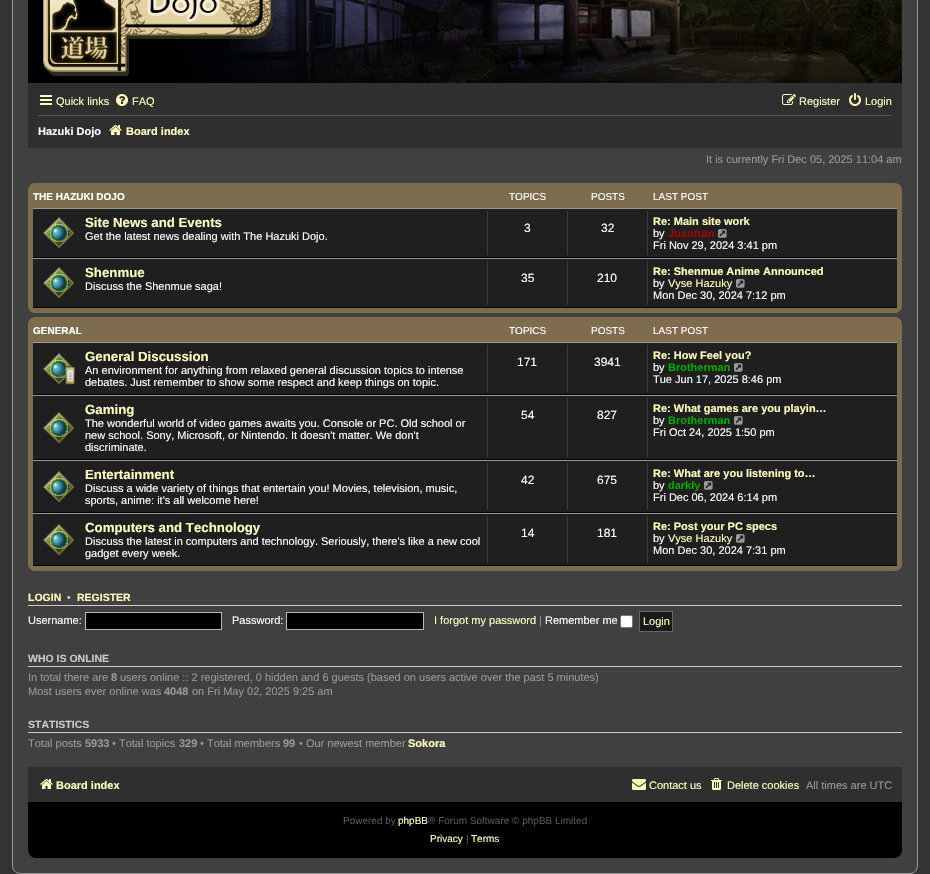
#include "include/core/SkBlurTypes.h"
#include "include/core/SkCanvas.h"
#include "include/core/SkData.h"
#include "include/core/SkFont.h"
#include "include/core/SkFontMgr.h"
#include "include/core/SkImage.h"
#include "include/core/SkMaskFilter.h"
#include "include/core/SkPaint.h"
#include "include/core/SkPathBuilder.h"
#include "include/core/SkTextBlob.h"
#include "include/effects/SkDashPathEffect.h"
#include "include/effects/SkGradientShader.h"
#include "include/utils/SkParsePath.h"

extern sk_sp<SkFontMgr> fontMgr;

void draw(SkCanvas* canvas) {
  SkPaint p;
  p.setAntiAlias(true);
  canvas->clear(SkColorSetRGB(51, 51, 51));
  p.setColor(SkColorSetRGB(64, 64, 64));
  canvas->drawRoundRect(SkRect::MakeLTRB(12.5f, -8.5f, 917.5f, 873.5f), 7.5f, 7.5f, p);
  p.setStyle(SkPaint::kStroke_Style);
  p.setStrokeWidth(1);
  p.setColor(SkColorSetRGB(153, 153, 153));
  canvas->drawRoundRect(SkRect::MakeLTRB(12.5f, -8.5f, 917.5f, 873.5f), 7.5f, 7.5f, p);
  p.setStyle(SkPaint::kFill_Style);
  p.setColor(SK_ColorBLACK);
  canvas->drawRect(SkRect::MakeLTRB(28, 0, 176, 83), p);
  canvas->drawImageRect(SkImages::DeferredFromEncodedData(SkData::MakeFromFileName("images/1.png")), SkRect::MakeLTRB(176, 0, 902, 83), SkSamplingOptions());
  canvas->drawImageRect(SkImages::DeferredFromEncodedData(SkData::MakeFromFileName("images/2.png")), SkRect::MakeLTRB(43, 0, 273, 76), SkSamplingOptions());
  p.setColor(SkColorSetRGB(48, 47, 47));
  canvas->drawRect(SkRect::MakeLTRB(28, 83, 902, 148), p);
  canvas->drawImageRect(SkImages::DeferredFromEncodedData(SkData::MakeFromFileName("images/3.png")), SkRect::MakeLTRB(40, 95, 52, 105), SkSamplingOptions());
  canvas->drawImageRect(SkImages::DeferredFromEncodedData(SkData::MakeFromFileName("images/4.png")), SkRect::MakeLTRB(116, 94, 128, 106), SkSamplingOptions());
  canvas->drawImageRect(SkImages::DeferredFromEncodedData(SkData::MakeFromFileName("images/5.png")), SkRect::MakeLTRB(782, 94, 796, 105), SkSamplingOptions());
  canvas->drawImageRect(SkImages::DeferredFromEncodedData(SkData::MakeFromFileName("images/6.png")), SkRect::MakeLTRB(849, 93, 861, 106), SkSamplingOptions());
  p.setColor(SkColorSetRGB(85, 85, 85));
  canvas->drawRect(SkRect::MakeLTRB(38, 115, 892, 116), p);
  canvas->drawImageRect(SkImages::DeferredFromEncodedData(SkData::MakeFromFileName("images/7.png")), SkRect::MakeLTRB(109, 125, 122, 135), SkSamplingOptions());
  p.setColor(SkColorSetRGB(126, 109, 76));
  canvas->drawRoundRect(SkRect::MakeLTRB(28, 183, 902, 313), 7, 7, p);
  p.setColor(SkColorSetRGB(31, 31, 31));
  canvas->drawRect(SkRect::MakeLTRB(33, 209, 897, 307), p);
  p.setColor(SkColorSetRGB(153, 153, 153));
  canvas->drawRect(SkRect::MakeLTRB(33, 208, 897, 209), p);
  p.setColor(SK_ColorBLACK);
  canvas->drawRect(SkRect::MakeLTRB(33, 257, 897, 258), p);
  canvas->drawImageRect(SkImages::DeferredFromEncodedData(SkData::MakeFromFileName("images/8.png")), SkRect::MakeLTRB(43, 217, 74, 248), SkSamplingOptions());
  p.setColor(SkColorSetRGB(60, 60, 60));
  canvas->drawRect(SkRect::MakeLTRB(487, 211, 488, 255), p);
  canvas->drawRect(SkRect::MakeLTRB(567, 211, 568, 255), p);
  canvas->drawRect(SkRect::MakeLTRB(647, 211, 648, 255), p);
  canvas->drawImageRect(SkImages::DeferredFromEncodedData(SkData::MakeFromFileName("images/9.png")), SkRect::MakeLTRB(718, 229, 727, 238), SkSamplingOptions());
  p.setColor(SkColorSetRGB(153, 153, 153));
  canvas->drawRect(SkRect::MakeLTRB(33, 258, 897, 259), p);
  p.setColor(SK_ColorBLACK);
  canvas->drawRect(SkRect::MakeLTRB(33, 307, 897, 308), p);
  canvas->drawImageRect(SkImages::DeferredFromEncodedData(SkData::MakeFromFileName("images/8.png")), SkRect::MakeLTRB(43, 267, 74, 298), SkSamplingOptions());
  p.setColor(SkColorSetRGB(60, 60, 60));
  canvas->drawRect(SkRect::MakeLTRB(487, 261, 488, 305), p);
  canvas->drawRect(SkRect::MakeLTRB(567, 261, 568, 305), p);
  canvas->drawRect(SkRect::MakeLTRB(647, 261, 648, 305), p);
  canvas->drawImageRect(SkImages::DeferredFromEncodedData(SkData::MakeFromFileName("images/9.png")), SkRect::MakeLTRB(736, 279, 745, 288), SkSamplingOptions());
  p.setColor(SkColorSetRGB(126, 109, 76));
  canvas->drawRoundRect(SkRect::MakeLTRB(28, 317, 902, 571), 7, 7, p);
  p.setColor(SkColorSetRGB(31, 31, 31));
  canvas->drawRect(SkRect::MakeLTRB(33, 343, 897, 565), p);
  p.setColor(SkColorSetRGB(153, 153, 153));
  canvas->drawRect(SkRect::MakeLTRB(33, 342, 897, 343), p);
  p.setColor(SK_ColorBLACK);
  canvas->drawRect(SkRect::MakeLTRB(33, 394, 897, 395), p);
  canvas->drawImageRect(SkImages::DeferredFromEncodedData(SkData::MakeFromFileName("images/10.png")), SkRect::MakeLTRB(43, 353, 75, 385), SkSamplingOptions());
  p.setColor(SkColorSetRGB(60, 60, 60));
  canvas->drawRect(SkRect::MakeLTRB(487, 345, 488, 392), p);
  canvas->drawRect(SkRect::MakeLTRB(567, 345, 568, 392), p);
  canvas->drawRect(SkRect::MakeLTRB(647, 345, 648, 392), p);
  canvas->drawImageRect(SkImages::DeferredFromEncodedData(SkData::MakeFromFileName("images/9.png")), SkRect::MakeLTRB(734, 363, 743, 372), SkSamplingOptions());
  p.setColor(SkColorSetRGB(153, 153, 153));
  canvas->drawRect(SkRect::MakeLTRB(33, 395, 897, 396), p);
  p.setColor(SK_ColorBLACK);
  canvas->drawRect(SkRect::MakeLTRB(33, 459, 897, 460), p);
  canvas->drawImageRect(SkImages::DeferredFromEncodedData(SkData::MakeFromFileName("images/8.png")), SkRect::MakeLTRB(43, 412, 74, 443), SkSamplingOptions());
  p.setColor(SkColorSetRGB(60, 60, 60));
  canvas->drawRect(SkRect::MakeLTRB(487, 398, 488, 457), p);
  canvas->drawRect(SkRect::MakeLTRB(567, 398, 568, 457), p);
  canvas->drawRect(SkRect::MakeLTRB(647, 398, 648, 457), p);
  canvas->drawImageRect(SkImages::DeferredFromEncodedData(SkData::MakeFromFileName("images/9.png")), SkRect::MakeLTRB(734, 416, 743, 425), SkSamplingOptions());
  p.setColor(SkColorSetRGB(153, 153, 153));
  canvas->drawRect(SkRect::MakeLTRB(33, 460, 897, 461), p);
  p.setColor(SK_ColorBLACK);
  canvas->drawRect(SkRect::MakeLTRB(33, 512, 897, 513), p);
  canvas->drawImageRect(SkImages::DeferredFromEncodedData(SkData::MakeFromFileName("images/8.png")), SkRect::MakeLTRB(43, 471, 74, 502), SkSamplingOptions());
  p.setColor(SkColorSetRGB(60, 60, 60));
  canvas->drawRect(SkRect::MakeLTRB(487, 463, 488, 510), p);
  canvas->drawRect(SkRect::MakeLTRB(567, 463, 568, 510), p);
  canvas->drawRect(SkRect::MakeLTRB(647, 463, 648, 510), p);
  canvas->drawImageRect(SkImages::DeferredFromEncodedData(SkData::MakeFromFileName("images/9.png")), SkRect::MakeLTRB(704, 481, 713, 490), SkSamplingOptions());
  p.setColor(SkColorSetRGB(153, 153, 153));
  canvas->drawRect(SkRect::MakeLTRB(33, 513, 897, 514), p);
  p.setColor(SK_ColorBLACK);
  canvas->drawRect(SkRect::MakeLTRB(33, 565, 897, 566), p);
  canvas->drawImageRect(SkImages::DeferredFromEncodedData(SkData::MakeFromFileName("images/8.png")), SkRect::MakeLTRB(43, 524, 74, 555), SkSamplingOptions());
  p.setColor(SkColorSetRGB(60, 60, 60));
  canvas->drawRect(SkRect::MakeLTRB(487, 516, 488, 563), p);
  canvas->drawRect(SkRect::MakeLTRB(567, 516, 568, 563), p);
  canvas->drawRect(SkRect::MakeLTRB(647, 516, 648, 563), p);
  canvas->drawImageRect(SkImages::DeferredFromEncodedData(SkData::MakeFromFileName("images/9.png")), SkRect::MakeLTRB(736, 534, 745, 543), SkSamplingOptions());
  p.setColor(SkColorSetRGB(204, 204, 204));
  canvas->drawRect(SkRect::MakeLTRB(28, 605, 902, 606), p);
  p.setColor(SK_ColorBLACK);
  canvas->drawRect(SkRect::MakeLTRB(85.5f, 612.5f, 221.5f, 629.5f), p);
  p.setStyle(SkPaint::kStroke_Style);
  p.setColor(SkColorSetRGB(180, 186, 192));
  canvas->drawRect(SkRect::MakeLTRB(85.5f, 612.5f, 221.5f, 629.5f), p);
  p.setStyle(SkPaint::kFill_Style);
  p.setColor(SK_ColorBLACK);
  canvas->drawRect(SkRect::MakeLTRB(286.5f, 612.5f, 423.5f, 629.5f), p);
  p.setStyle(SkPaint::kStroke_Style);
  p.setColor(SkColorSetRGB(180, 186, 192));
  canvas->drawRect(SkRect::MakeLTRB(286.5f, 612.5f, 423.5f, 629.5f), p);
  p.setStyle(SkPaint::kFill_Style);
  p.setColor(SK_ColorWHITE);
  canvas->drawRoundRect(SkRect::MakeLTRB(620.5f, 615.5f, 632.5f, 627.5f), 1.5f, 1.5f, p);
  p.setStyle(SkPaint::kStroke_Style);
  p.setColor(SkColorSetRGB(118, 118, 118));
  canvas->drawRoundRect(SkRect::MakeLTRB(620.5f, 615.5f, 632.5f, 627.5f), 1.5f, 1.5f, p);
  p.setStyle(SkPaint::kFill_Style);
  p.setColor(SkColorSetRGB(25, 25, 25));
  canvas->drawRect(SkRect::MakeLTRB(639.5f, 611.5f, 672.5f, 631.5f), p);
  p.setStyle(SkPaint::kStroke_Style);
  p.setColor(SkColorSetRGB(102, 102, 102));
  canvas->drawRect(SkRect::MakeLTRB(639.5f, 611.5f, 672.5f, 631.5f), p);
  p.setStyle(SkPaint::kFill_Style);
  p.setColor(SkColorSetRGB(204, 204, 204));
  canvas->drawRect(SkRect::MakeLTRB(28, 666, 902, 667), p);
  canvas->drawRect(SkRect::MakeLTRB(28, 732, 902, 733), p);
  p.setColor(SK_ColorBLACK);
  canvas->drawRoundRect(SkRect::MakeLTRB(28, 767, 902, 858), 8, 8, p);
  p.setColor(SkColorSetRGB(48, 47, 47));
  canvas->drawRect(SkRect::MakeLTRB(28, 767, 902, 802), p);
  canvas->drawImageRect(SkImages::DeferredFromEncodedData(SkData::MakeFromFileName("images/7.png")), SkRect::MakeLTRB(40, 779, 53, 789), SkSamplingOptions());
  canvas->drawImageRect(SkImages::DeferredFromEncodedData(SkData::MakeFromFileName("images/11.png")), SkRect::MakeLTRB(632, 779, 646, 790), SkSamplingOptions());
  canvas->drawImageRect(SkImages::DeferredFromEncodedData(SkData::MakeFromFileName("images/12.png")), SkRect::MakeLTRB(711, 778, 722, 790), SkSamplingOptions());
  SkFont font1(fontMgr->matchFamilyStyle("Liberation Sans", SkFontStyle::Normal()), 11);
  font1.setSubpixel(true);
  p.setColor(SkColorSetRGB(255, 254, 190));
  canvas->drawString("Quick links", 56, 105, font1, p);
  canvas->drawString("FAQ", 132, 105, font1, p);
  canvas->drawString("Register", 799, 105, font1, p);
  canvas->drawString("Login", 865, 105, font1, p);
  SkFont font2(fontMgr->matchFamilyStyle("Liberation Sans", SkFontStyle::Bold()), 11);
  font2.setSubpixel(true);
  p.setColor(SK_ColorWHITE);
  canvas->drawString("Hazuki Dojo", 38, 135, font2, p);
  p.setColor(SkColorSetRGB(255, 254, 190));
  canvas->drawString("Board index", 126, 135, font2, p);
  p.setColor(SkColorSetRGB(153, 153, 153));
  canvas->drawString("It is currently Fri Dec 05, 2025 11:04 am", 706, 163, font1, p);
  SkFont font3(fontMgr->matchFamilyStyle("Liberation Sans", SkFontStyle::Bold()), 10);
  font3.setSubpixel(true);
  p.setColor(SK_ColorWHITE);
  canvas->drawString("THE HAZUKI DOJO", 33, 200, font3, p);
  SkFont font4(fontMgr->matchFamilyStyle("Liberation Sans", SkFontStyle::Normal()), 10);
  font4.setSubpixel(true);
  canvas->drawString("TOPICS", 509, 200, font4, p);
  canvas->drawString("POSTS", 591, 200, font4, p);
  canvas->drawString("LAST POST", 653, 200, font4, p);
  SkFont font5(fontMgr->matchFamilyStyle("Liberation Sans", SkFontStyle::Bold()), 13.25f);
  font5.setSubpixel(true);
  p.setColor(SkColorSetRGB(255, 254, 190));
  canvas->drawString("Site News and Events", 85, 227, font5, p);
  p.setColor(SK_ColorWHITE);
  canvas->drawString("Get the latest news dealing with The Hazuki Dojo.", 85, 240, font1, p);
  SkFont font6(fontMgr->matchFamilyStyle("Liberation Sans", SkFontStyle::Normal()), 12);
  font6.setSubpixel(true);
  canvas->drawString("3", 524, 232, font6, p);
  canvas->drawString("32", 601, 232, font6, p);
  p.setColor(SkColorSetRGB(255, 254, 190));
  canvas->drawString("Re: Main site work", 653, 225, font2, p);
  p.setColor(SK_ColorWHITE);
  canvas->drawString("by", 653, 237, font1, p);
  p.setColor(SkColorSetRGB(170, 0, 0));
  canvas->drawString("Juanfran", 668, 237, font2, p);
  p.setColor(SK_ColorWHITE);
  canvas->drawString("Fri Nov 29, 2024 3:41 pm", 653, 249, font1, p);
  p.setColor(SkColorSetRGB(255, 254, 190));
  canvas->drawString("Shenmue", 85, 277, font5, p);
  p.setColor(SK_ColorWHITE);
  canvas->drawString("Discuss the Shenmue saga!", 85, 290, font1, p);
  canvas->drawString("35", 521, 282, font6, p);
  canvas->drawString("210", 597, 282, font6, p);
  p.setColor(SkColorSetRGB(255, 254, 190));
  canvas->drawString("Re: Shenmue Anime Announced", 653, 275, font2, p);
  p.setColor(SK_ColorWHITE);
  canvas->drawString("by", 653, 287, font1, p);
  p.setColor(SkColorSetRGB(255, 254, 190));
  canvas->drawString("Vyse Hazuky", 668, 287, font1, p);
  p.setColor(SK_ColorWHITE);
  canvas->drawString("Mon Dec 30, 2024 7:12 pm", 653, 299, font1, p);
  canvas->drawString("GENERAL", 33, 334, font3, p);
  canvas->drawString("TOPICS", 509, 334, font4, p);
  canvas->drawString("POSTS", 591, 334, font4, p);
  canvas->drawString("LAST POST", 653, 334, font4, p);
  p.setColor(SkColorSetRGB(255, 254, 190));
  canvas->drawString("General Discussion", 85, 361, font5, p);
  p.setColor(SK_ColorWHITE);
  canvas->drawString("An environment for anything from relaxed general discussion topics to intense", 85, 374, font1, p);
  canvas->drawString("debates. Just remember to show some respect and keep things on topic.", 85, 386, font1, p);
  canvas->drawString("171", 517, 366, font6, p);
  canvas->drawString("3941", 594, 366, font6, p);
  p.setColor(SkColorSetRGB(255, 254, 190));
  canvas->drawString("Re: How Feel you?", 653, 359, font2, p);
  p.setColor(SK_ColorWHITE);
  canvas->drawString("by", 653, 371, font1, p);
  p.setColor(SkColorSetRGB(0, 170, 0));
  canvas->drawString("Brotherman", 668, 371, font2, p);
  p.setColor(SK_ColorWHITE);
  canvas->drawString("Tue Jun 17, 2025 8:46 pm", 653, 383, font1, p);
  p.setColor(SkColorSetRGB(255, 254, 190));
  canvas->drawString("Gaming", 85, 414, font5, p);
  p.setColor(SK_ColorWHITE);
  canvas->drawString("The wonderful world of video games awaits you. Console or PC. Old school or", 85, 427, font1, p);
  canvas->drawString("new school. Sony, Microsoft, or Nintendo. It doesn't matter. We don't", 85, 439, font1, p);
  canvas->drawString("discriminate.", 85, 451, font1, p);
  canvas->drawString("54", 521, 419, font6, p);
  canvas->drawString("827", 597, 419, font6, p);
  p.setColor(SkColorSetRGB(255, 254, 190));
  canvas->drawString("Re: What games are you playin…", 653, 412, font2, p);
  p.setColor(SK_ColorWHITE);
  canvas->drawString("by", 653, 424, font1, p);
  p.setColor(SkColorSetRGB(0, 170, 0));
  canvas->drawString("Brotherman", 668, 424, font2, p);
  p.setColor(SK_ColorWHITE);
  canvas->drawString("Fri Oct 24, 2025 1:50 pm", 653, 436, font1, p);
  p.setColor(SkColorSetRGB(255, 254, 190));
  canvas->drawString("Entertainment", 85, 479, font5, p);
  p.setColor(SK_ColorWHITE);
  canvas->drawString("Discuss a wide variety of things that entertain you! Movies, television, music,", 85, 492, font1, p);
  canvas->drawString("sports, anime: it's all welcome here!", 85, 504, font1, p);
  canvas->drawString("42", 521, 484, font6, p);
  canvas->drawString("675", 597, 484, font6, p);
  p.setColor(SkColorSetRGB(255, 254, 190));
  canvas->drawString("Re: What are you listening to…", 653, 477, font2, p);
  p.setColor(SK_ColorWHITE);
  canvas->drawString("by", 653, 489, font1, p);
  p.setColor(SkColorSetRGB(0, 170, 0));
  canvas->drawString("darkly", 668, 489, font2, p);
  p.setColor(SK_ColorWHITE);
  canvas->drawString("Fri Dec 06, 2024 6:14 pm", 653, 501, font1, p);
  p.setColor(SkColorSetRGB(255, 254, 190));
  canvas->drawString("Computers and Technology", 85, 532, font5, p);
  p.setColor(SK_ColorWHITE);
  canvas->drawString("Discuss the latest in computers and technology. Seriously, there's like a new cool", 85, 545, font1, p);
  canvas->drawString("gadget every week.", 85, 557, font1, p);
  canvas->drawString("14", 521, 537, font6, p);
  canvas->drawString("181", 597, 537, font6, p);
  p.setColor(SkColorSetRGB(255, 254, 190));
  canvas->drawString("Re: Post your PC specs", 653, 530, font2, p);
  p.setColor(SK_ColorWHITE);
  canvas->drawString("by", 653, 542, font1, p);
  p.setColor(SkColorSetRGB(255, 254, 190));
  canvas->drawString("Vyse Hazuky", 668, 542, font1, p);
  p.setColor(SK_ColorWHITE);
  canvas->drawString("Mon Dec 30, 2024 7:31 pm", 653, 554, font1, p);
  SkFont font7(fontMgr->matchFamilyStyle("Liberation Sans", SkFontStyle::Bold()), 10.5f);
  font7.setSubpixel(true);
  p.setColor(SkColorSetRGB(255, 254, 190));
  canvas->drawString("LOGIN", 28, 601, font7, p);
  p.setColor(SkColorSetRGB(204, 204, 204));
  canvas->drawString("•", 67, 601, font7, p);
  p.setColor(SkColorSetRGB(255, 254, 190));
  canvas->drawString("REGISTER", 77, 601, font7, p);
  p.setColor(SK_ColorWHITE);
  canvas->drawString("Username:", 28, 624, font1, p);
  canvas->drawString("Password:", 232, 624, font1, p);
  p.setColor(SkColorSetRGB(255, 254, 190));
  canvas->drawString("I forgot my password", 434, 624, font1, p);
  p.setColor(SkColorSetRGB(153, 153, 153));
  canvas->drawString("|", 539, 624, font1, p);
  p.setColor(SK_ColorWHITE);
  canvas->drawString("Remember me", 545, 624, font1, p);
  p.setColor(SkColorSetRGB(255, 254, 190));
  canvas->drawString("Login", 643, 625, font1, p);
  p.setColor(SkColorSetRGB(204, 204, 204));
  canvas->drawString("WHO IS ONLINE", 28, 662, font7, p);
  p.setColor(SkColorSetRGB(153, 153, 153));
  canvas->drawString("In total there are", 28, 681, font1, p);
  canvas->drawString("8", 111, 681, font2, p);
  canvas->drawString("users online :: 2 registered, 0 hidden and 6 guests (based on users active over the past 5 minutes)", 120, 681, font1, p);
  canvas->drawString("Most users ever online was", 28, 695, font1, p);
  canvas->drawString("4048", 164, 695, font2, p);
  canvas->drawString("on Fri May 02, 2025 9:25 am", 192, 695, font1, p);
  p.setColor(SkColorSetRGB(204, 204, 204));
  canvas->drawString("STATISTICS", 28, 728, font7, p);
  p.setColor(SkColorSetRGB(153, 153, 153));
  canvas->drawString("Total posts", 28, 747, font1, p);
  canvas->drawString("5933", 85, 747, font2, p);
  canvas->drawString("• Total topics", 112, 747, font1, p);
  canvas->drawString("329", 179, 747, font2, p);
  canvas->drawString("• Total members", 200, 747, font1, p);
  canvas->drawString("99", 283, 747, font2, p);
  canvas->drawString("• Our newest member", 299, 747, font1, p);
  p.setColor(SkColorSetRGB(255, 254, 190));
  canvas->drawString("Sokora", 408, 747, font2, p);
  canvas->drawString("Board index", 56, 789, font2, p);
  canvas->drawString("Contact us", 649, 789, font1, p);
  canvas->drawString("Delete cookies", 727, 789, font1, p);
  p.setColor(SkColorSetRGB(153, 153, 153));
  canvas->drawString("All times are UTC", 806, 789, font1, p);
  p.setColor(SkColorSetRGB(85, 85, 85));
  canvas->drawString("Powered by", 343, 824, font4, p);
  p.setColor(SkColorSetRGB(255, 254, 190));
  canvas->drawString("phpBB", 398, 824, font4, p);
  p.setColor(SkColorSetRGB(85, 85, 85));
  canvas->drawString("® Forum Software © phpBB Limited", 428, 824, font4, p);
  p.setColor(SkColorSetRGB(255, 254, 190));
  canvas->drawString("Privacy", 430, 842, font4, p);
  p.setColor(SkColorSetRGB(85, 85, 85));
  canvas->drawString("|", 466, 842, font4, p);
  p.setColor(SkColorSetRGB(255, 254, 190));
  canvas->drawString("Terms", 471, 842, font4, p);
}
